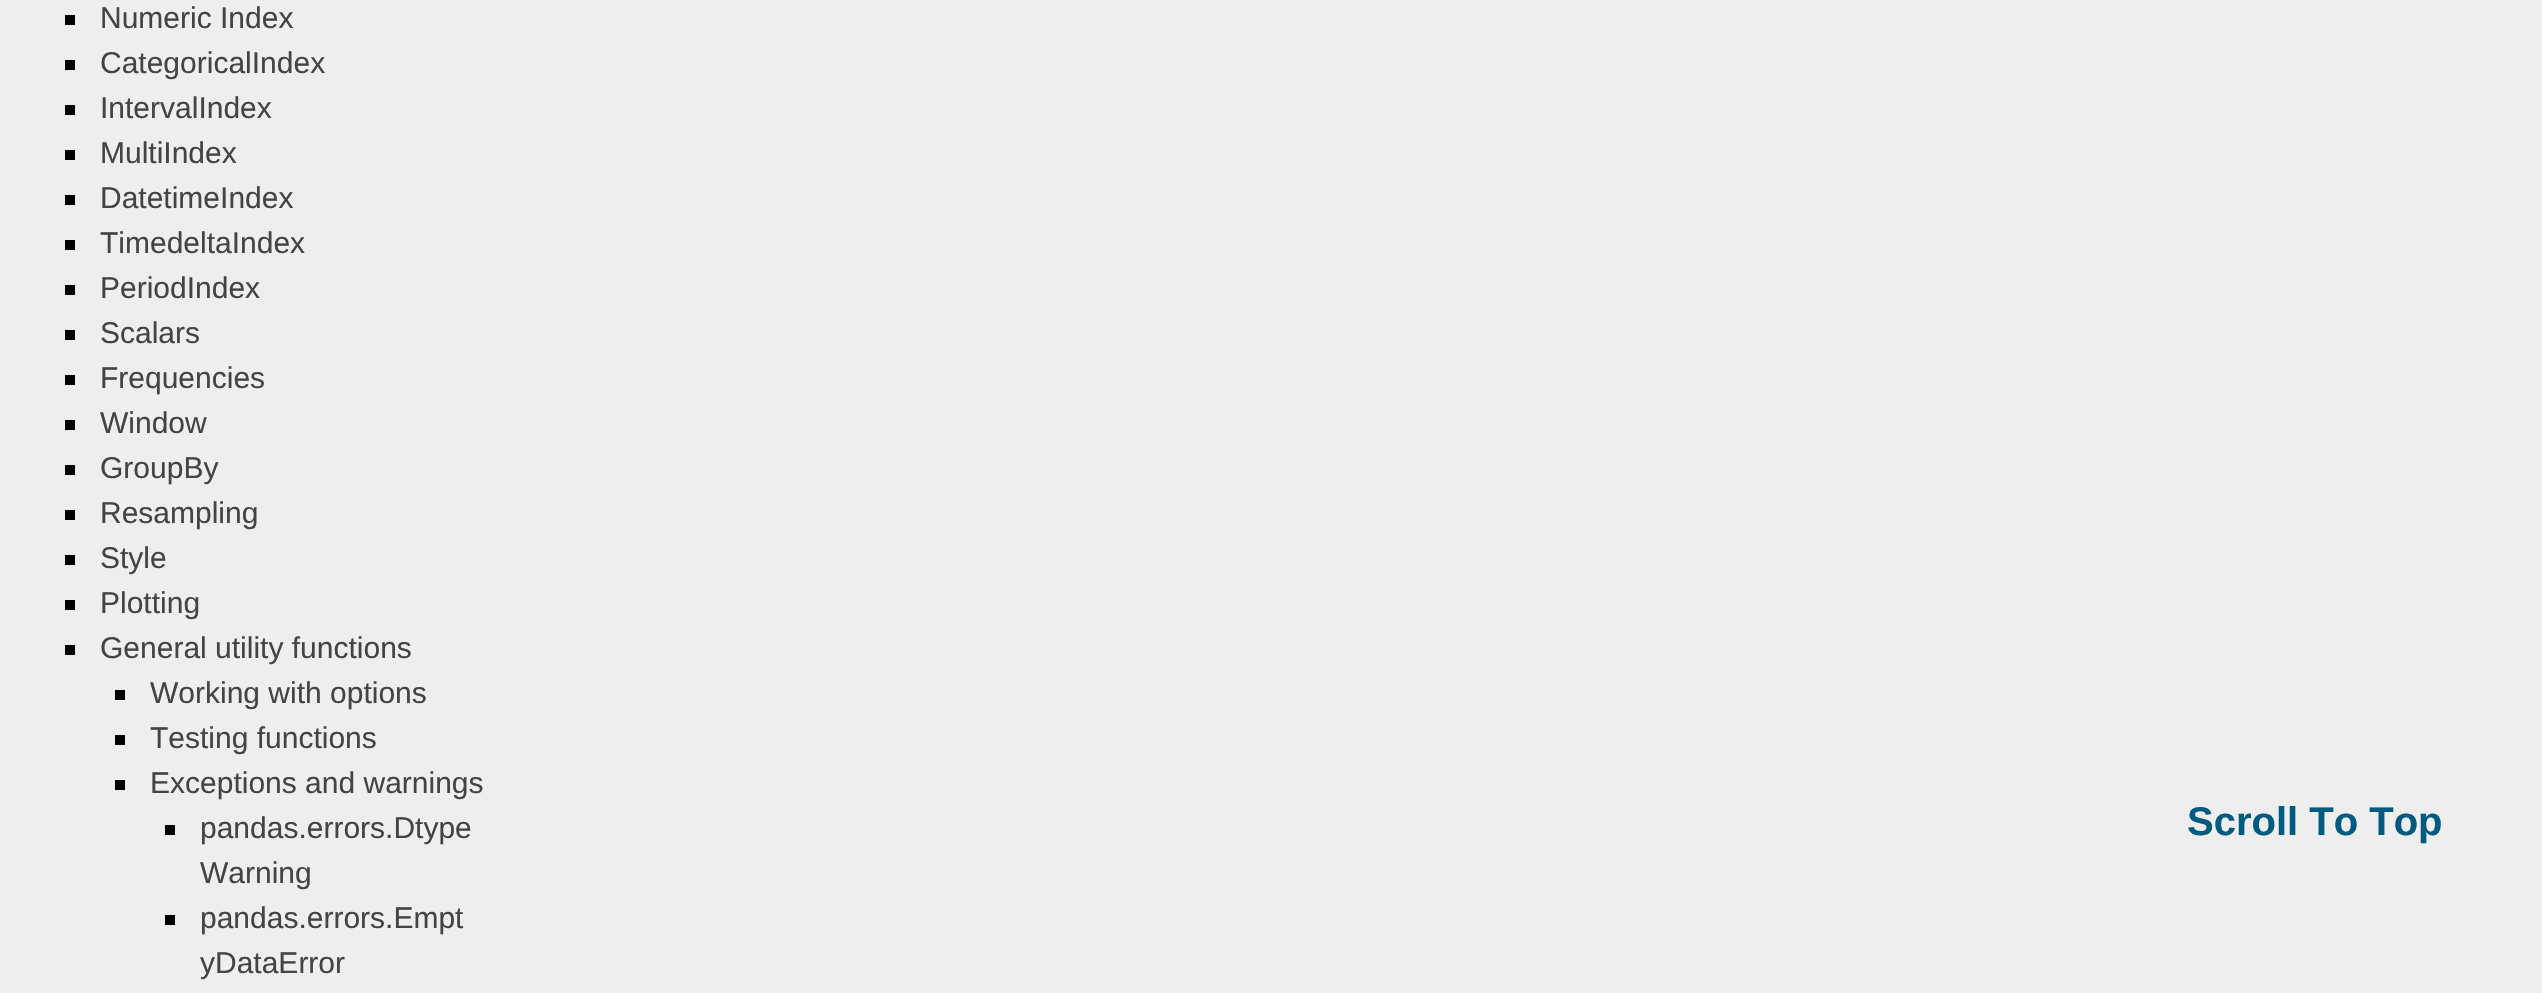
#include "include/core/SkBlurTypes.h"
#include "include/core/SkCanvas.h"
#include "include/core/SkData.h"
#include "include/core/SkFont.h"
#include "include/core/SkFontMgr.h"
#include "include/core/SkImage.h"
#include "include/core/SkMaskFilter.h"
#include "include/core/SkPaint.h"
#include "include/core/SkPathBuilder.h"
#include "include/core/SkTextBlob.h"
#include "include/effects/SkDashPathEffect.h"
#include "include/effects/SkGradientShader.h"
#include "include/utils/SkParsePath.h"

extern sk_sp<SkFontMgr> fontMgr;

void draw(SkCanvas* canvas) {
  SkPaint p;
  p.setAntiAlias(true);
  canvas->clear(SkColorSetRGB(238, 238, 238));
  p.setColor(SK_ColorBLACK);
  canvas->drawRect(SkRect::MakeLTRB(65, 15, 75, 25), p);
  canvas->drawRect(SkRect::MakeLTRB(65, 60, 75, 70), p);
  canvas->drawRect(SkRect::MakeLTRB(65, 105, 75, 115), p);
  canvas->drawRect(SkRect::MakeLTRB(65, 150, 75, 160), p);
  canvas->drawRect(SkRect::MakeLTRB(65, 195, 75, 205), p);
  canvas->drawRect(SkRect::MakeLTRB(65, 240, 75, 250), p);
  canvas->drawRect(SkRect::MakeLTRB(65, 285, 75, 295), p);
  canvas->drawRect(SkRect::MakeLTRB(65, 330, 75, 340), p);
  canvas->drawRect(SkRect::MakeLTRB(65, 375, 75, 385), p);
  canvas->drawRect(SkRect::MakeLTRB(65, 420, 75, 430), p);
  canvas->drawRect(SkRect::MakeLTRB(65, 465, 75, 475), p);
  canvas->drawRect(SkRect::MakeLTRB(65, 510, 75, 520), p);
  canvas->drawRect(SkRect::MakeLTRB(65, 555, 75, 565), p);
  canvas->drawRect(SkRect::MakeLTRB(65, 600, 75, 610), p);
  canvas->drawRect(SkRect::MakeLTRB(65, 645, 75, 655), p);
  canvas->drawRect(SkRect::MakeLTRB(115, 690, 125, 700), p);
  canvas->drawRect(SkRect::MakeLTRB(115, 735, 125, 745), p);
  canvas->drawRect(SkRect::MakeLTRB(115, 780, 125, 790), p);
  canvas->drawRect(SkRect::MakeLTRB(165, 825, 175, 835), p);
  canvas->drawRect(SkRect::MakeLTRB(165, 915, 175, 925), p);
  SkFont font1(fontMgr->matchFamilyStyle("Liberation Sans", SkFontStyle::Normal()), 30);
  font1.setSubpixel(true);
  p.setColor(SkColorSetRGB(68, 68, 68));
  canvas->drawString("Numeric Index", 100, 28, font1, p);
  canvas->drawString("CategoricalIndex", 100, 73, font1, p);
  canvas->drawString("IntervalIndex", 100, 118, font1, p);
  canvas->drawString("MultiIndex", 100, 163, font1, p);
  canvas->drawString("DatetimeIndex", 100, 208, font1, p);
  canvas->drawString("TimedeltaIndex", 100, 253, font1, p);
  canvas->drawString("PeriodIndex", 100, 298, font1, p);
  canvas->drawString("Scalars", 100, 343, font1, p);
  canvas->drawString("Frequencies", 100, 388, font1, p);
  canvas->drawString("Window", 100, 433, font1, p);
  canvas->drawString("GroupBy", 100, 478, font1, p);
  canvas->drawString("Resampling", 100, 523, font1, p);
  canvas->drawString("Style", 100, 568, font1, p);
  canvas->drawString("Plotting", 100, 613, font1, p);
  canvas->drawString("General utility functions", 100, 658, font1, p);
  canvas->drawString("Working with options", 150, 703, font1, p);
  canvas->drawString("Testing functions", 150, 748, font1, p);
  canvas->drawString("Exceptions and warnings", 150, 793, font1, p);
  canvas->drawString("pandas.errors.Dtype", 200, 838, font1, p);
  canvas->drawString("Warning", 200, 883, font1, p);
  canvas->drawString("pandas.errors.Empt", 200, 928, font1, p);
  canvas->drawString("yDataError", 200, 973, font1, p);
  SkFont font2(fontMgr->matchFamilyStyle("Liberation Sans", SkFontStyle::Bold()), 40);
  font2.setSubpixel(true);
  p.setColor(SkColorSetRGB(0, 91, 129));
  canvas->drawString("Scroll To Top", 2187, 835, font2, p);
}
